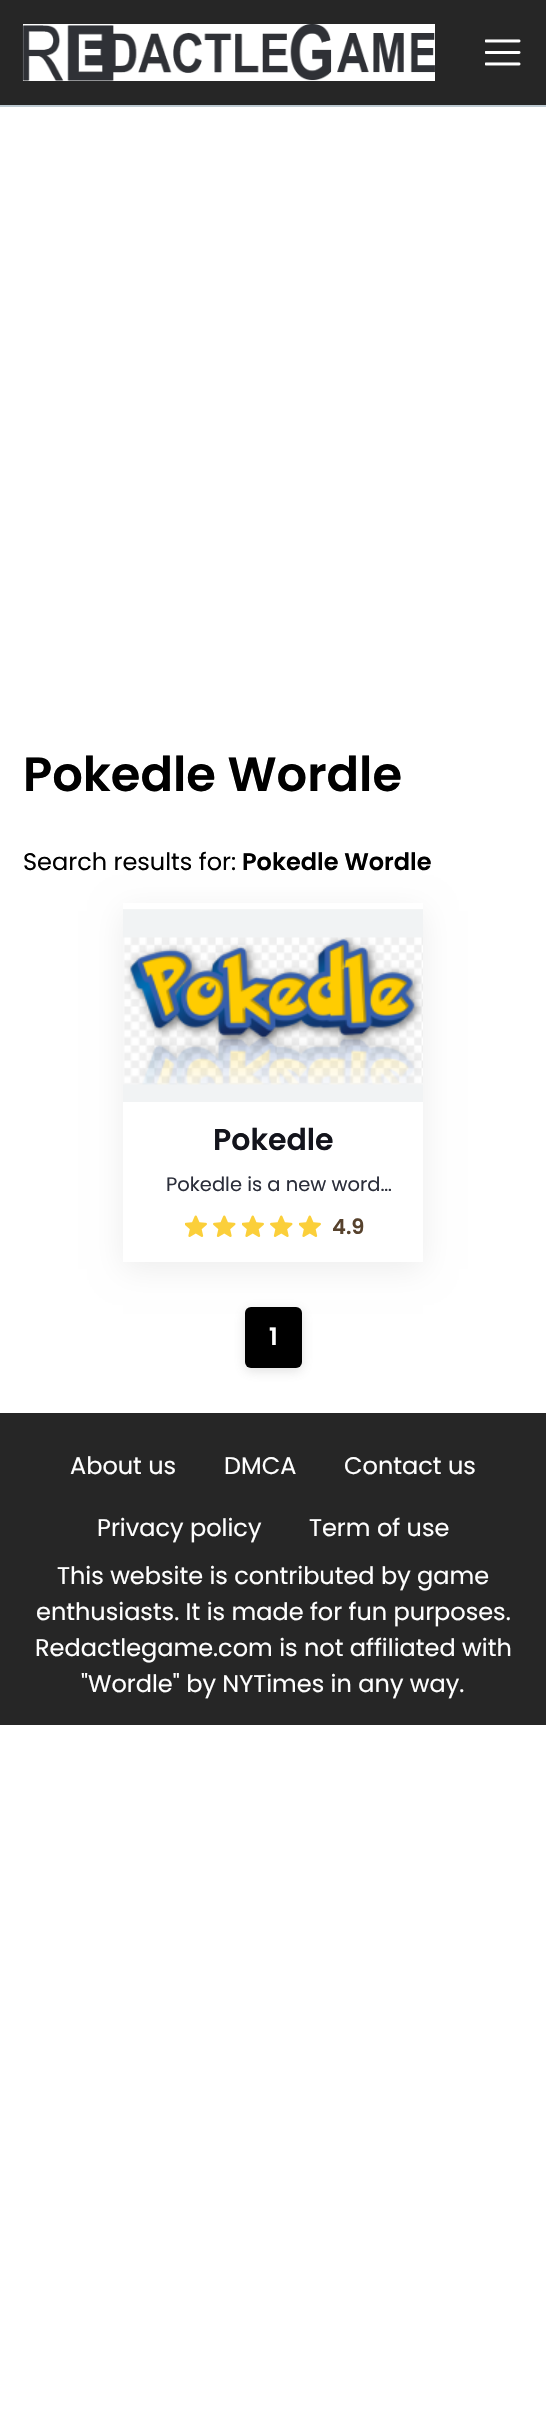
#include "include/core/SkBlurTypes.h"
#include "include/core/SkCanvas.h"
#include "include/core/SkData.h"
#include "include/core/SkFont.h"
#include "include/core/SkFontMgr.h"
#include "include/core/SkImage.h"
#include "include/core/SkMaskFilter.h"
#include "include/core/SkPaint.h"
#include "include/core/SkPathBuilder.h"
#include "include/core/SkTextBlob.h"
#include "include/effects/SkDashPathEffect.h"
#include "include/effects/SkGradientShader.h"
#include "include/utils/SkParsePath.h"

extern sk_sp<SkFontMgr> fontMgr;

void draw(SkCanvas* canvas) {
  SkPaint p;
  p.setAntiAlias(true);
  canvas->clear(SK_ColorWHITE);
  p.setColor(SkColorSetRGB(38, 38, 38));
  canvas->drawRect(SkRect::MakeLTRB(0, 0, 546, 105), p);
  p.setColor(SkColorSetRGB(189, 202, 210));
  canvas->drawRect(SkRect::MakeLTRB(0, 105, 546, 107), p);
  p.setColor(SK_ColorWHITE);
  canvas->drawRect(SkRect::MakeLTRB(23, 24, 435, 81), p);
  canvas->drawImageRect(SkImages::DeferredFromEncodedData(SkData::MakeFromFileName("images/1.png")), SkRect::MakeLTRB(22, 24, 435, 81), SkSamplingOptions());
  canvas->drawImageRect(SkImages::DeferredFromEncodedData(SkData::MakeFromFileName("images/2.png")), SkRect::MakeLTRB(485, 39, 521, 66), SkSamplingOptions());
  p.setColor(SkColorSetARGB(18, 0, 0, 0));
  p.setMaskFilter(SkMaskFilter::MakeBlur(kNormal_SkBlurStyle, 15));
  canvas->drawRect(SkRect::MakeLTRB(123, 911, 423, 1269), p);
  p.setMaskFilter(nullptr);
  p.setColor(SK_ColorWHITE);
  canvas->drawRect(SkRect::MakeLTRB(123, 903, 423, 1262), p);
  canvas->drawImageRect(SkImages::DeferredFromEncodedData(SkData::MakeFromFileName("images/3.png")), SkRect::MakeLTRB(123, 909, 423, 1102), SkSamplingOptions());
  canvas->drawImageRect(SkImages::DeferredFromEncodedData(SkData::MakeFromFileName("images/4.png")), SkRect::MakeLTRB(185, 1215, 207, 1237), SkSamplingOptions());
  canvas->drawImageRect(SkImages::DeferredFromEncodedData(SkData::MakeFromFileName("images/5.png")), SkRect::MakeLTRB(213, 1215, 236, 1237), SkSamplingOptions());
  canvas->drawImageRect(SkImages::DeferredFromEncodedData(SkData::MakeFromFileName("images/4.png")), SkRect::MakeLTRB(242, 1215, 264, 1237), SkSamplingOptions());
  canvas->drawImageRect(SkImages::DeferredFromEncodedData(SkData::MakeFromFileName("images/5.png")), SkRect::MakeLTRB(270, 1215, 293, 1237), SkSamplingOptions());
  canvas->drawImageRect(SkImages::DeferredFromEncodedData(SkData::MakeFromFileName("images/4.png")), SkRect::MakeLTRB(299, 1215, 321, 1237), SkSamplingOptions());
  p.setColor(SkColorSetARGB(51, 99, 99, 99));
  p.setMaskFilter(SkMaskFilter::MakeBlur(kNormal_SkBlurStyle, 6));
  canvas->drawRoundRect(SkRect::MakeLTRB(245, 1310, 302, 1371), 6, 6, p);
  p.setMaskFilter(nullptr);
  p.setColor(SK_ColorBLACK);
  canvas->drawRoundRect(SkRect::MakeLTRB(245, 1307, 302, 1368), 6, 6, p);
  p.setColor(SkColorSetRGB(38, 38, 38));
  canvas->drawRect(SkRect::MakeLTRB(0, 1413, 546, 1725), p);
  SkFont font1(fontMgr->matchFamilyStyle("Poppins", SkFontStyle(600, SkFontStyle::kNormal_Width, SkFontStyle::kUpright_Slant)), 48);
  font1.setSubpixel(true);
  p.setColor(SK_ColorBLACK);
  canvas->drawString("Pokedle Wordle", 23, 791, font1, p);
  SkFont font2(fontMgr->matchFamilyStyle("Poppins", SkFontStyle::Normal()), 24);
  font2.setSubpixel(true);
  canvas->drawString("Search results for:", 23, 870, font2, p);
  SkFont font3(fontMgr->matchFamilyStyle("Poppins", SkFontStyle(600, SkFontStyle::kNormal_Width, SkFontStyle::kUpright_Slant)), 24);
  font3.setSubpixel(true);
  canvas->drawString("Pokedle Wordle", 242, 870, font3, p);
  SkFont font4(fontMgr->matchFamilyStyle("Poppins", SkFontStyle(600, SkFontStyle::kNormal_Width, SkFontStyle::kUpright_Slant)), 30);
  font4.setSubpixel(true);
  p.setColor(SkColorSetRGB(19, 20, 28));
  canvas->drawString("Pokedle", 213, 1150, font4, p);
  SkFont font5(fontMgr->matchFamilyStyle("Poppins", SkFontStyle::Normal()), 19.5f);
  font5.setSubpixel(true);
  p.setColor(SkColorSetRGB(43, 46, 58));
  canvas->drawString("Pokedle is a new word…", 166, 1191, font5, p);
  SkFont font6(fontMgr->matchFamilyStyle("Poppins", SkFontStyle(600, SkFontStyle::kNormal_Width, SkFontStyle::kUpright_Slant)), 21);
  font6.setSubpixel(true);
  p.setColor(SkColorSetRGB(87, 66, 45));
  canvas->drawString("4.9", 332, 1234, font6, p);
  p.setColor(SK_ColorWHITE);
  canvas->drawString("1", 269, 1345, font3, p);
  canvas->drawString("About us", 70, 1474, font2, p);
  canvas->drawString("DMCA", 224, 1474, font2, p);
  canvas->drawString("Contact us", 344, 1474, font2, p);
  canvas->drawString("Privacy policy", 97, 1536, font2, p);
  canvas->drawString("Term of use", 309, 1536, font2, p);
  canvas->drawString("This website is contributed by game", 57, 1584, font2, p);
  canvas->drawString("enthusiasts. It is made for fun purposes.", 36, 1620, font2, p);
  canvas->drawString("Redactlegame.com is not affiliated with", 35, 1656, font2, p);
  canvas->drawString("\"Wordle\" by NYTimes in any way.", 81, 1692, font2, p);
}
